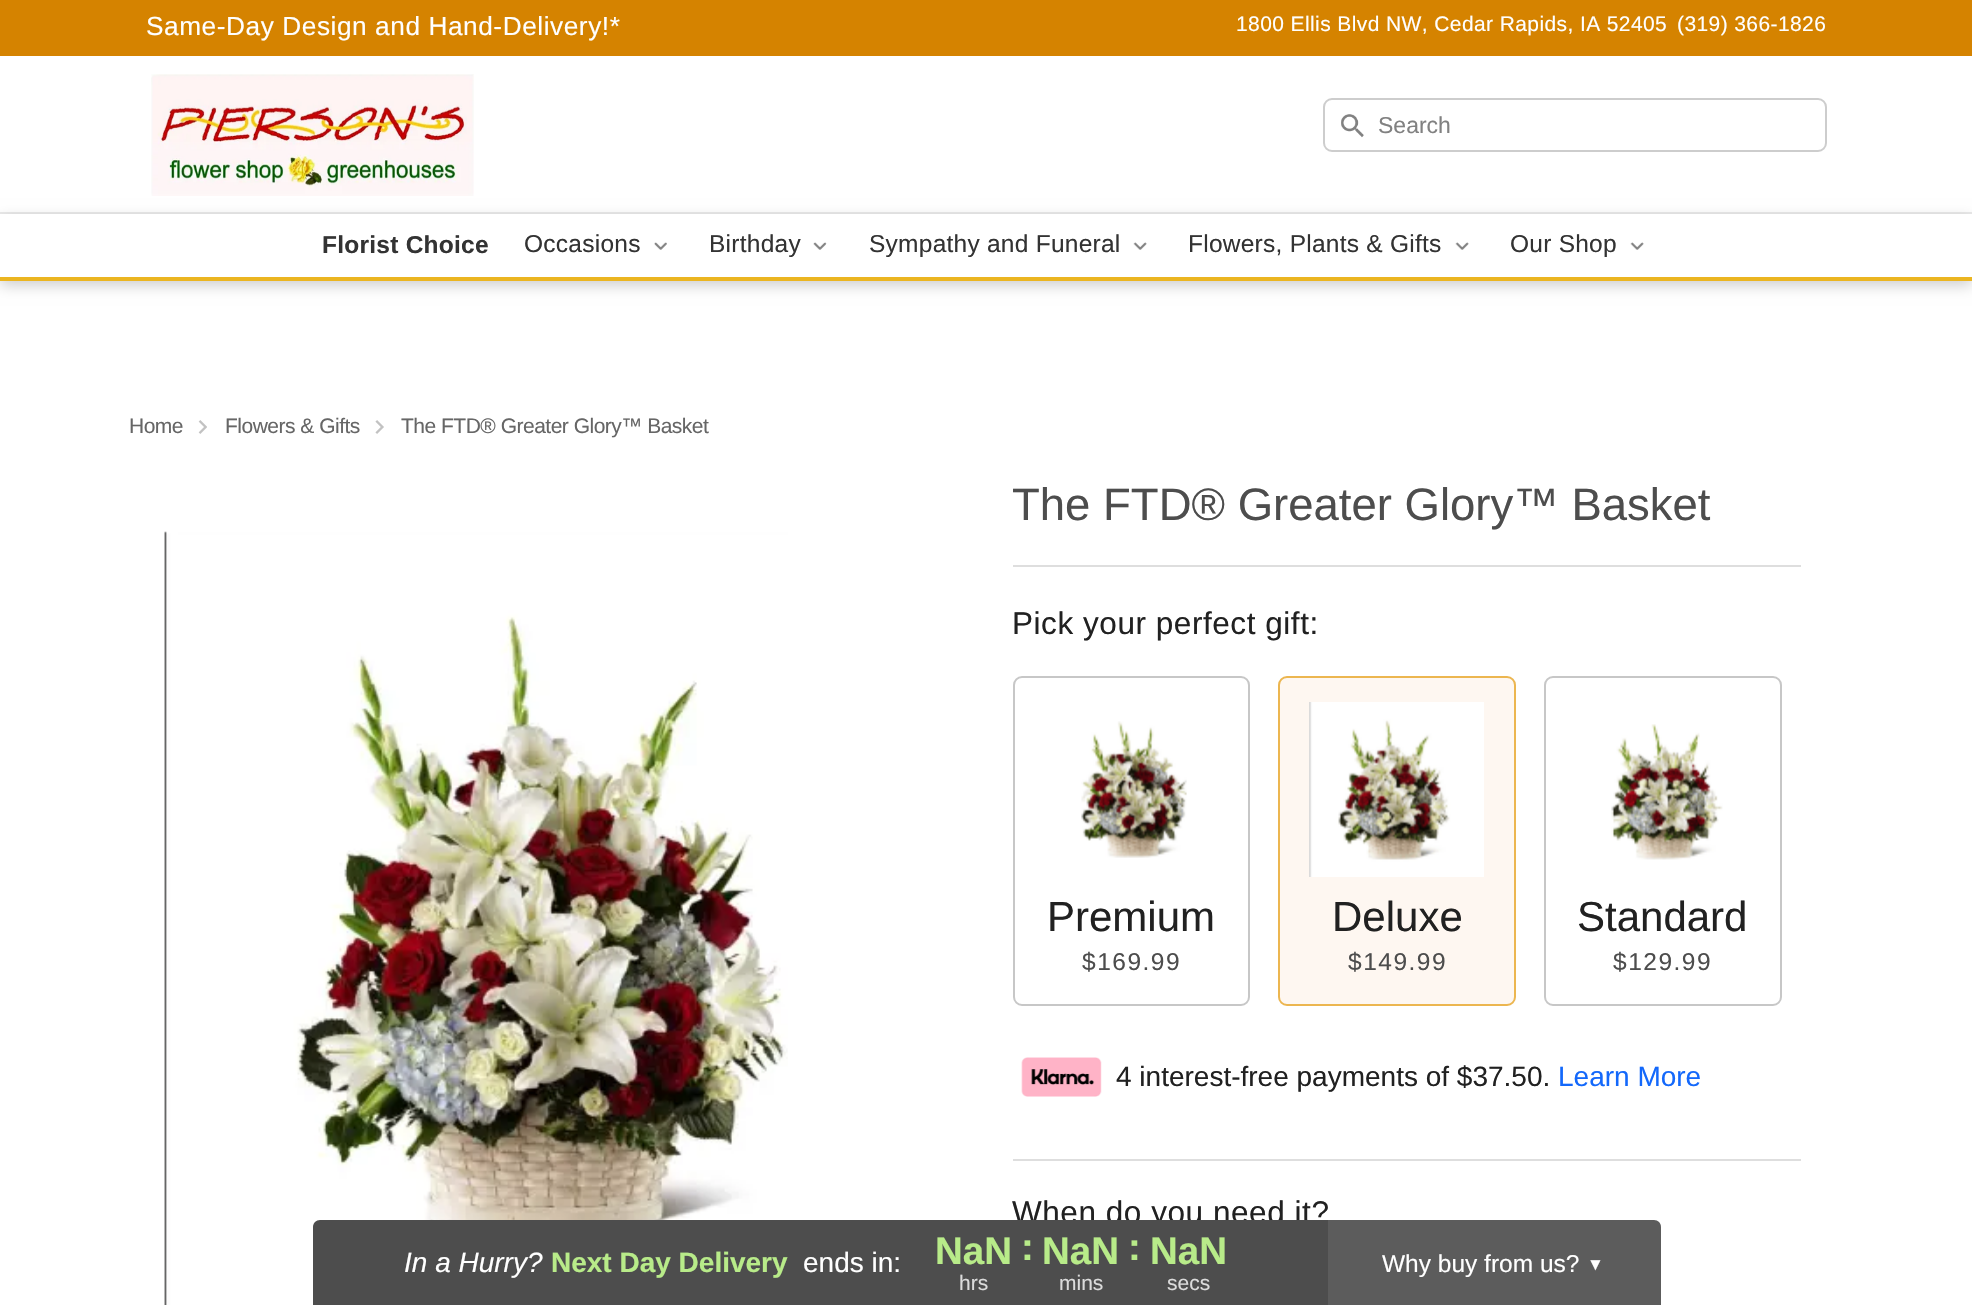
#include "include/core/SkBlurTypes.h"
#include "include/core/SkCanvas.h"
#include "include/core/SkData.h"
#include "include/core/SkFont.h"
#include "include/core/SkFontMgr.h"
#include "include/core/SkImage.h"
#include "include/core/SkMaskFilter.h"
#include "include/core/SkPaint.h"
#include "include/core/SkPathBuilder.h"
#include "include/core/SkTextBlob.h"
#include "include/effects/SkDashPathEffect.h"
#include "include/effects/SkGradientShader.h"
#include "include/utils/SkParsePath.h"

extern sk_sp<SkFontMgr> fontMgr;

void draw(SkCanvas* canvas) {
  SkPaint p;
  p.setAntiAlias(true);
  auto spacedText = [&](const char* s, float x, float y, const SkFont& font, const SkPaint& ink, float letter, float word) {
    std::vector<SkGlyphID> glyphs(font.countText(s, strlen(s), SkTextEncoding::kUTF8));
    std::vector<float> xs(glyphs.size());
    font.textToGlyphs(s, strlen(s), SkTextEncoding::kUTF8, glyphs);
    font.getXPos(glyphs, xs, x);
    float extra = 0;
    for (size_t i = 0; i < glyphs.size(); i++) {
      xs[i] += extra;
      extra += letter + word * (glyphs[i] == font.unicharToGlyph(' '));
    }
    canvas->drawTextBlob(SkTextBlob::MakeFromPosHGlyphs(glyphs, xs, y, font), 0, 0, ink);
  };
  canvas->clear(SK_ColorWHITE);
  p.setColor(SkColorSetRGB(213, 131, 0));
  canvas->drawRect(SkRect::MakeLTRB(0, 0, 1972, 56), p);
  p.setColor(SkColorSetRGB(234, 234, 234));
  canvas->drawRect(SkRect::MakeLTRB(0, 212, 1972, 214), p);
  canvas->drawImageRect(SkImages::DeferredFromEncodedData(SkData::MakeFromFileName("images/1.png")), SkRect::MakeLTRB(151, 74, 474, 196), SkSamplingOptions());
  canvas->drawImageRect(SkImages::DeferredFromEncodedData(SkData::MakeFromFileName("images/2.png")), SkRect::MakeLTRB(1341, 114, 1364, 138), SkSamplingOptions());
  p.setStyle(SkPaint::kStroke_Style);
  p.setStrokeWidth(2);
  p.setColor(SkColorSetRGB(205, 205, 205));
  canvas->drawRoundRect(SkRect::MakeLTRB(1324, 99, 1826, 151), 8, 8, p);
  canvas->save();
  canvas->clipPath(SkPathBuilder(SkPathFillType::kEvenOdd).moveTo(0, 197).lineTo(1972, 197).lineTo(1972, 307).lineTo(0, 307).close().moveTo(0, 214).lineTo(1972, 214).lineTo(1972, 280).lineTo(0, 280).close().detach(), true);
  p.setStyle(SkPaint::kFill_Style);
  p.setColor(SkColorSetARGB(51, 0, 0, 0));
  p.setMaskFilter(SkMaskFilter::MakeBlur(kNormal_SkBlurStyle, 7));
  canvas->drawRect(SkRect::MakeLTRB(0, 219, 1972, 285), p);
  p.setMaskFilter(nullptr);
  canvas->restore();
  p.setColor(SkColorSetRGB(235, 181, 32));
  canvas->drawRect(SkRect::MakeLTRB(0, 277, 1972, 281), p);
  canvas->drawImageRect(SkImages::DeferredFromEncodedData(SkData::MakeFromFileName("images/3.png")), SkRect::MakeLTRB(654, 242, 667, 250), SkSamplingOptions());
  canvas->drawImageRect(SkImages::DeferredFromEncodedData(SkData::MakeFromFileName("images/4.png")), SkRect::MakeLTRB(813, 242, 827, 250), SkSamplingOptions());
  canvas->drawImageRect(SkImages::DeferredFromEncodedData(SkData::MakeFromFileName("images/5.png")), SkRect::MakeLTRB(1133, 242, 1147, 250), SkSamplingOptions());
  canvas->drawImageRect(SkImages::DeferredFromEncodedData(SkData::MakeFromFileName("images/5.png")), SkRect::MakeLTRB(1455, 242, 1469, 250), SkSamplingOptions());
  canvas->drawImageRect(SkImages::DeferredFromEncodedData(SkData::MakeFromFileName("images/5.png")), SkRect::MakeLTRB(1630, 242, 1644, 250), SkSamplingOptions());
  canvas->drawImageRect(SkImages::DeferredFromEncodedData(SkData::MakeFromFileName("images/6.png")), SkRect::MakeLTRB(198, 420, 207, 434), SkSamplingOptions());
  canvas->drawImageRect(SkImages::DeferredFromEncodedData(SkData::MakeFromFileName("images/7.png")), SkRect::MakeLTRB(375, 420, 384, 434), SkSamplingOptions());
  canvas->drawImageRect(SkImages::DeferredFromEncodedData(SkData::MakeFromFileName("images/8.png")), SkRect::MakeLTRB(164, 531, 788, 1305), SkSamplingOptions());
  p.setColor(SkColorSetRGB(222, 222, 222));
  canvas->drawRect(SkRect::MakeLTRB(1013, 565, 1801, 567), p);
  p.setStyle(SkPaint::kStroke_Style);
  p.setColor(SkColorSetRGB(199, 199, 199));
  canvas->drawRoundRect(SkRect::MakeLTRB(1014, 677, 1249, 1005), 8, 8, p);
  canvas->drawImageRect(SkImages::DeferredFromEncodedData(SkData::MakeFromFileName("images/9.png")), SkRect::MakeLTRB(1081, 721, 1187, 858), SkSamplingOptions());
  p.setStyle(SkPaint::kFill_Style);
  p.setColor(SkColorSetRGB(254, 247, 241));
  canvas->drawRoundRect(SkRect::MakeLTRB(1279, 677, 1515, 1005), 8, 8, p);
  p.setStyle(SkPaint::kStroke_Style);
  p.setColor(SkColorSetRGB(236, 182, 80));
  canvas->drawRoundRect(SkRect::MakeLTRB(1279, 677, 1515, 1005), 8, 8, p);
  canvas->drawImageRect(SkImages::DeferredFromEncodedData(SkData::MakeFromFileName("images/10.png")), SkRect::MakeLTRB(1309, 702, 1484, 877), SkSamplingOptions());
  p.setColor(SkColorSetRGB(199, 199, 199));
  canvas->drawRoundRect(SkRect::MakeLTRB(1545, 677, 1781, 1005), 8, 8, p);
  canvas->drawImageRect(SkImages::DeferredFromEncodedData(SkData::MakeFromFileName("images/11.png")), SkRect::MakeLTRB(1611, 724, 1723, 860), SkSamplingOptions());
  canvas->drawImageRect(SkImages::DeferredFromEncodedData(SkData::MakeFromFileName("images/12.png")), SkRect::MakeLTRB(1021, 1057, 1102, 1097), SkSamplingOptions());
  p.setStyle(SkPaint::kFill_Style);
  p.setColor(SkColorSetRGB(222, 222, 222));
  canvas->drawRect(SkRect::MakeLTRB(1013, 1159, 1801, 1161), p);
  p.setColor(SkColorSetRGB(92, 92, 92));
  canvas->drawPath(SkPathBuilder().moveTo(1328, 1220).lineTo(1654, 1220).cubicTo(1658, 1220, 1661, 1223, 1661, 1227).lineTo(1661, 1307).lineTo(1328, 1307).close().detach(), p);
  SkFont font1(fontMgr->matchFamilyStyle("Liberation Sans", SkFontStyle::Normal()), 26.25f);
  font1.setSubpixel(true);
  p.setColor(SK_ColorWHITE);
  spacedText("Same-Day Design and Hand-Delivery!*", 146, 35, font1, p, 0.55f, 0);
  SkFont font2(fontMgr->matchFamilyStyle("Liberation Sans", SkFontStyle::Normal()), 21);
  font2.setSubpixel(true);
  spacedText("1800 Ellis Blvd NW, Cedar Rapids, IA 52405", 1236, 31, font2, p, 0.4f, 0);
  spacedText("(319) 366-1826", 1677, 31, font2, p, 0.4f, 0);
  SkFont font3(fontMgr->matchFamilyStyle("Liberation Sans", SkFontStyle::Normal()), 23);
  font3.setSubpixel(true);
  p.setColor(SkColorSetRGB(129, 129, 129));
  canvas->drawString("Search", 1378, 133, font3, p);
  SkFont font4(fontMgr->matchFamilyStyle("Liberation Sans", SkFontStyle::Bold()), 24.5f);
  font4.setSubpixel(true);
  p.setColor(SkColorSetRGB(51, 51, 51));
  spacedText("Florist Choice", 322, 253, font4, p, 0.25f, 0);
  SkFont font5(fontMgr->matchFamilyStyle("Liberation Sans", SkFontStyle::Normal()), 24.5f);
  font5.setSubpixel(true);
  spacedText("Occasions", 524, 252, font5, p, 0.25f, 0);
  spacedText("Birthday", 709, 252, font5, p, 0.25f, 0);
  spacedText("Sympathy and Funeral", 869, 252, font5, p, 0.25f, 0);
  spacedText("Flowers, Plants & Gifts", 1188, 252, font5, p, 0.25f, 0);
  spacedText("Our Shop", 1510, 252, font5, p, 0.25f, 0);
  p.setColor(SkColorSetRGB(102, 102, 102));
  spacedText("Home", 129, 433, font2, p, -0.5f, 0);
  spacedText("Flowers & Gifts", 225, 433, font2, p, -0.5f, 0);
  spacedText("The FTD® Greater Glory™ Basket", 401, 433, font2, p, -0.5f, 0);
  SkFont font6(fontMgr->matchFamilyStyle("Liberation Sans", SkFontStyle::Normal()), 45.5f);
  font6.setSubpixel(true);
  p.setColor(SkColorSetRGB(77, 77, 77));
  canvas->drawString("The FTD® Greater Glory™ Basket", 1012, 520, font6, p);
  SkFont font7(fontMgr->matchFamilyStyle("Liberation Sans", SkFontStyle::Normal()), 31.5f);
  font7.setSubpixel(true);
  p.setColor(SkColorSetRGB(33, 33, 33));
  spacedText("Pick your perfect gift:", 1012, 634, font7, p, 0.55f, 0);
  SkFont font8(fontMgr->matchFamilyStyle("Liberation Sans", SkFontStyle::Normal()), 42);
  font8.setSubpixel(true);
  canvas->drawString("Premium", 1047, 931, font8, p);
  p.setColor(SkColorSetRGB(77, 77, 77));
  spacedText("$169.99", 1082, 970, font5, p, 1.5f, 0);
  p.setColor(SkColorSetRGB(33, 33, 33));
  canvas->drawString("Deluxe", 1332, 931, font8, p);
  p.setColor(SkColorSetRGB(77, 77, 77));
  spacedText("$149.99", 1348, 970, font5, p, 1.5f, 0);
  p.setColor(SkColorSetRGB(33, 33, 33));
  canvas->drawString("Standard", 1577, 931, font8, p);
  p.setColor(SkColorSetRGB(77, 77, 77));
  spacedText("$129.99", 1613, 970, font5, p, 1.5f, 0);
  SkFont font9(fontMgr->matchFamilyStyle("Liberation Sans", SkFontStyle::Normal()), 28);
  font9.setSubpixel(true);
  p.setColor(SkColorSetRGB(33, 33, 33));
  canvas->drawString("4 interest-free payments of $37.50.", 1116, 1086, font9, p);
  p.setColor(SkColorSetRGB(19, 104, 251));
  canvas->drawString("Learn More", 1558, 1086, font9, p);
  p.setColor(SkColorSetRGB(33, 33, 33));
  spacedText("When do you need it?", 1012, 1223, font7, p, 0.55f, 0);
  p.setColor(SkColorSetRGB(77, 77, 77));
  canvas->drawPath(SkPathBuilder().moveTo(320, 1220).lineTo(1328, 1220).lineTo(1328, 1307).lineTo(313, 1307).lineTo(313, 1227).cubicTo(313, 1223, 316, 1220, 320, 1220).close().detach(), p);
  SkFont font10(fontMgr->matchFamilyStyle("Liberation Sans", SkFontStyle::Italic()), 28);
  font10.setSubpixel(true);
  p.setColor(SK_ColorWHITE);
  canvas->drawString("In a Hurry?", 404, 1272, font10, p);
  SkFont font11(fontMgr->matchFamilyStyle("Liberation Sans", SkFontStyle::Bold()), 28);
  font11.setSubpixel(true);
  p.setColor(SkColorSetRGB(184, 235, 137));
  canvas->drawString("Next Day Delivery", 551, 1272, font11, p);
  p.setColor(SK_ColorWHITE);
  canvas->drawString("ends in:", 803, 1272, font9, p);
  SkFont font12(fontMgr->matchFamilyStyle("Liberation Sans", SkFontStyle::Bold()), 38.5f);
  font12.setSubpixel(true);
  p.setColor(SkColorSetRGB(184, 235, 137));
  canvas->drawString("NaN", 935, 1264, font12, p);
  p.setColor(SkColorSetRGB(219, 219, 219));
  canvas->drawString("hrs", 959, 1290, font2, p);
  p.setColor(SkColorSetRGB(184, 235, 137));
  canvas->drawString(":", 1021, 1260, font12, p);
  canvas->drawString("NaN", 1042, 1264, font12, p);
  p.setColor(SkColorSetRGB(219, 219, 219));
  canvas->drawString("mins", 1059, 1290, font2, p);
  p.setColor(SkColorSetRGB(184, 235, 137));
  canvas->drawString(":", 1128, 1260, font12, p);
  canvas->drawString("NaN", 1150, 1264, font12, p);
  p.setColor(SkColorSetRGB(219, 219, 219));
  canvas->drawString("secs", 1167, 1290, font2, p);
  p.setColor(SK_ColorWHITE);
  canvas->drawString("Why buy from us?", 1382, 1272, font5, p);
  SkFont font13(fontMgr->matchFamilyStyle("Liberation Sans", SkFontStyle::Normal()), 17);
  font13.setSubpixel(true);
  canvas->drawString("▼", 1587, 1270, font13, p);
}
